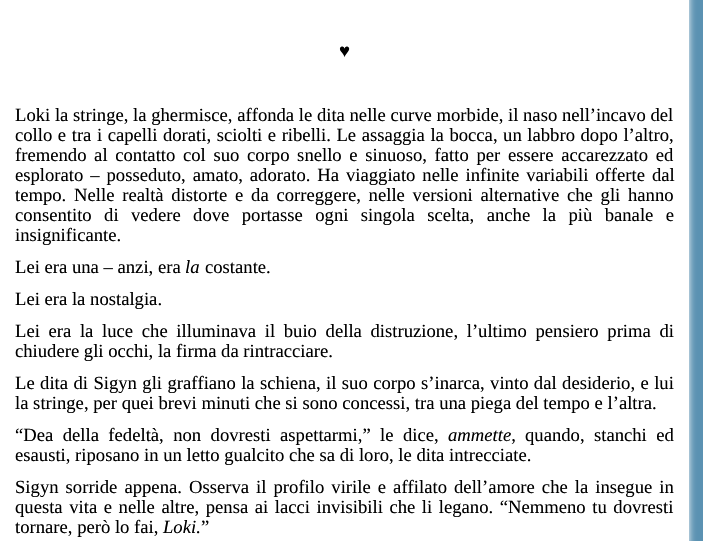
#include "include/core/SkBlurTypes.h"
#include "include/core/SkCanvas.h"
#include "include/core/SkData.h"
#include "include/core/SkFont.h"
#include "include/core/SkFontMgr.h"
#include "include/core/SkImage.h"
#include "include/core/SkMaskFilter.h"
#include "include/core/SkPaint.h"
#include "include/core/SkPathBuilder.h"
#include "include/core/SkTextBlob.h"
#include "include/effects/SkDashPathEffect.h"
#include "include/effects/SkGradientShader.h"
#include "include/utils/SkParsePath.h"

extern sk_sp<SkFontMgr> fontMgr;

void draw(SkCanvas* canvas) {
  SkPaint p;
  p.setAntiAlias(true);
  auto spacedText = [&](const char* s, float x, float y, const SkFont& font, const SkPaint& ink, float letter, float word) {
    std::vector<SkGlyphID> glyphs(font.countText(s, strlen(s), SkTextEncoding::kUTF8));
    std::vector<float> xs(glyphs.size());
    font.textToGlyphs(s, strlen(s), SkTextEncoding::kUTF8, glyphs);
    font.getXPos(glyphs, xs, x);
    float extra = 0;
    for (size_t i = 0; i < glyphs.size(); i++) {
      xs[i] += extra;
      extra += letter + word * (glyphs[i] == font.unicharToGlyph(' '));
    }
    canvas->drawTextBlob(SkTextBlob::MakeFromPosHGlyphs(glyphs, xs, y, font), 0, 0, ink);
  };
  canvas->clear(SkColorSetRGB(91, 146, 178));
  p.setColor(SK_ColorWHITE);
  p.setMaskFilter(SkMaskFilter::MakeBlur(kNormal_SkBlurStyle, 3.5f));
  canvas->drawRoundRect(SkRect::MakeLTRB(0, -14, 689, 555), 3, 3, p);
  p.setMaskFilter(nullptr);
  canvas->drawRect(SkRect::MakeLTRB(0, 0, 689, 541), p);
  SkFont font1(fontMgr->matchFamilyStyle("Liberation Serif", SkFontStyle::Normal()), 18.65f);
  font1.setSubpixel(true);
  p.setColor(SK_ColorBLACK);
  canvas->drawString("♥", 339, 57, font1, p);
  canvas->drawString("Loki la stringe, la ghermisce, affonda le dita nelle curve morbide, il naso nell’incavo del", 15, 121, font1, p);
  spacedText("collo e tra i capelli dorati, sciolti e ribelli. Le assaggia la bocca, un labbro dopo l’altro,", 15, 141, font1, p, 0, 0.9f);
  spacedText("fremendo al contatto col suo corpo snello e sinuoso, fatto per essere accarezzato ed", 15, 161, font1, p, 0, 3);
  spacedText("esplorato – posseduto, amato, adorato. Ha viaggiato nelle infinite variabili offerte dal", 15, 181, font1, p, 0, 2.25f);
  spacedText("tempo. Nelle realtà distorte e da correggere, nelle versioni alternative che gli hanno", 15, 201, font1, p, 0, 3.1f);
  spacedText("consentito di vedere dove portasse ogni singola scelta, anche la più banale e", 15, 221, font1, p, 0, 7.75f);
  canvas->drawString("insignificante.", 15, 241, font1, p);
  canvas->drawString("Lei era una – anzi, era", 15, 273, font1, p);
  SkFont font2(fontMgr->matchFamilyStyle("Liberation Serif", SkFontStyle::Italic()), 18.65f);
  font2.setSubpixel(true);
  canvas->drawString("la", 185, 273, font2, p);
  canvas->drawString("costante.", 205, 273, font1, p);
  canvas->drawString("Lei era la nostalgia.", 15, 305, font1, p);
  spacedText("Lei era la luce che illuminava il buio della distruzione, l’ultimo pensiero prima di", 15, 337, font1, p, 0, 4);
  canvas->drawString("chiudere gli occhi, la firma da rintracciare.", 15, 357, font1, p);
  spacedText("Le dita di Sigyn gli graffiano la schiena, il suo corpo s’inarca, vinto dal desiderio, e lui", 15, 389, font1, p, 0, 0.75f);
  canvas->drawString("la stringe, per quei brevi minuti che si sono concessi, tra una piega del tempo e l’altra.", 15, 409, font1, p);
  spacedText("“Dea della fedeltà, non dovresti aspettarmi,” le dice,", 15, 441, font1, p, 0, 4.75f);
  canvas->drawString("ammette,", 448, 441, font2, p);
  spacedText("quando, stanchi ed", 525, 441, font1, p, 0, 4.75f);
  canvas->drawString("esausti, riposano in un letto gualcito che sa di loro, le dita intrecciate.", 15, 461, font1, p);
  spacedText("Sigyn sorride appena. Osserva il profilo virile e affilato dell’amore che la insegue in", 15, 493, font1, p, 0, 2.4f);
  spacedText("questa vita e nelle altre, pensa ai lacci invisibili che li legano. “Nemmeno tu dovresti", 15, 513, font1, p, 0, 1.9f);
  canvas->drawString("tornare, però lo fai,", 15, 533, font1, p);
  canvas->drawString("Loki.", 163, 533, font2, p);
  canvas->drawString("”", 201, 533, font1, p);
}
